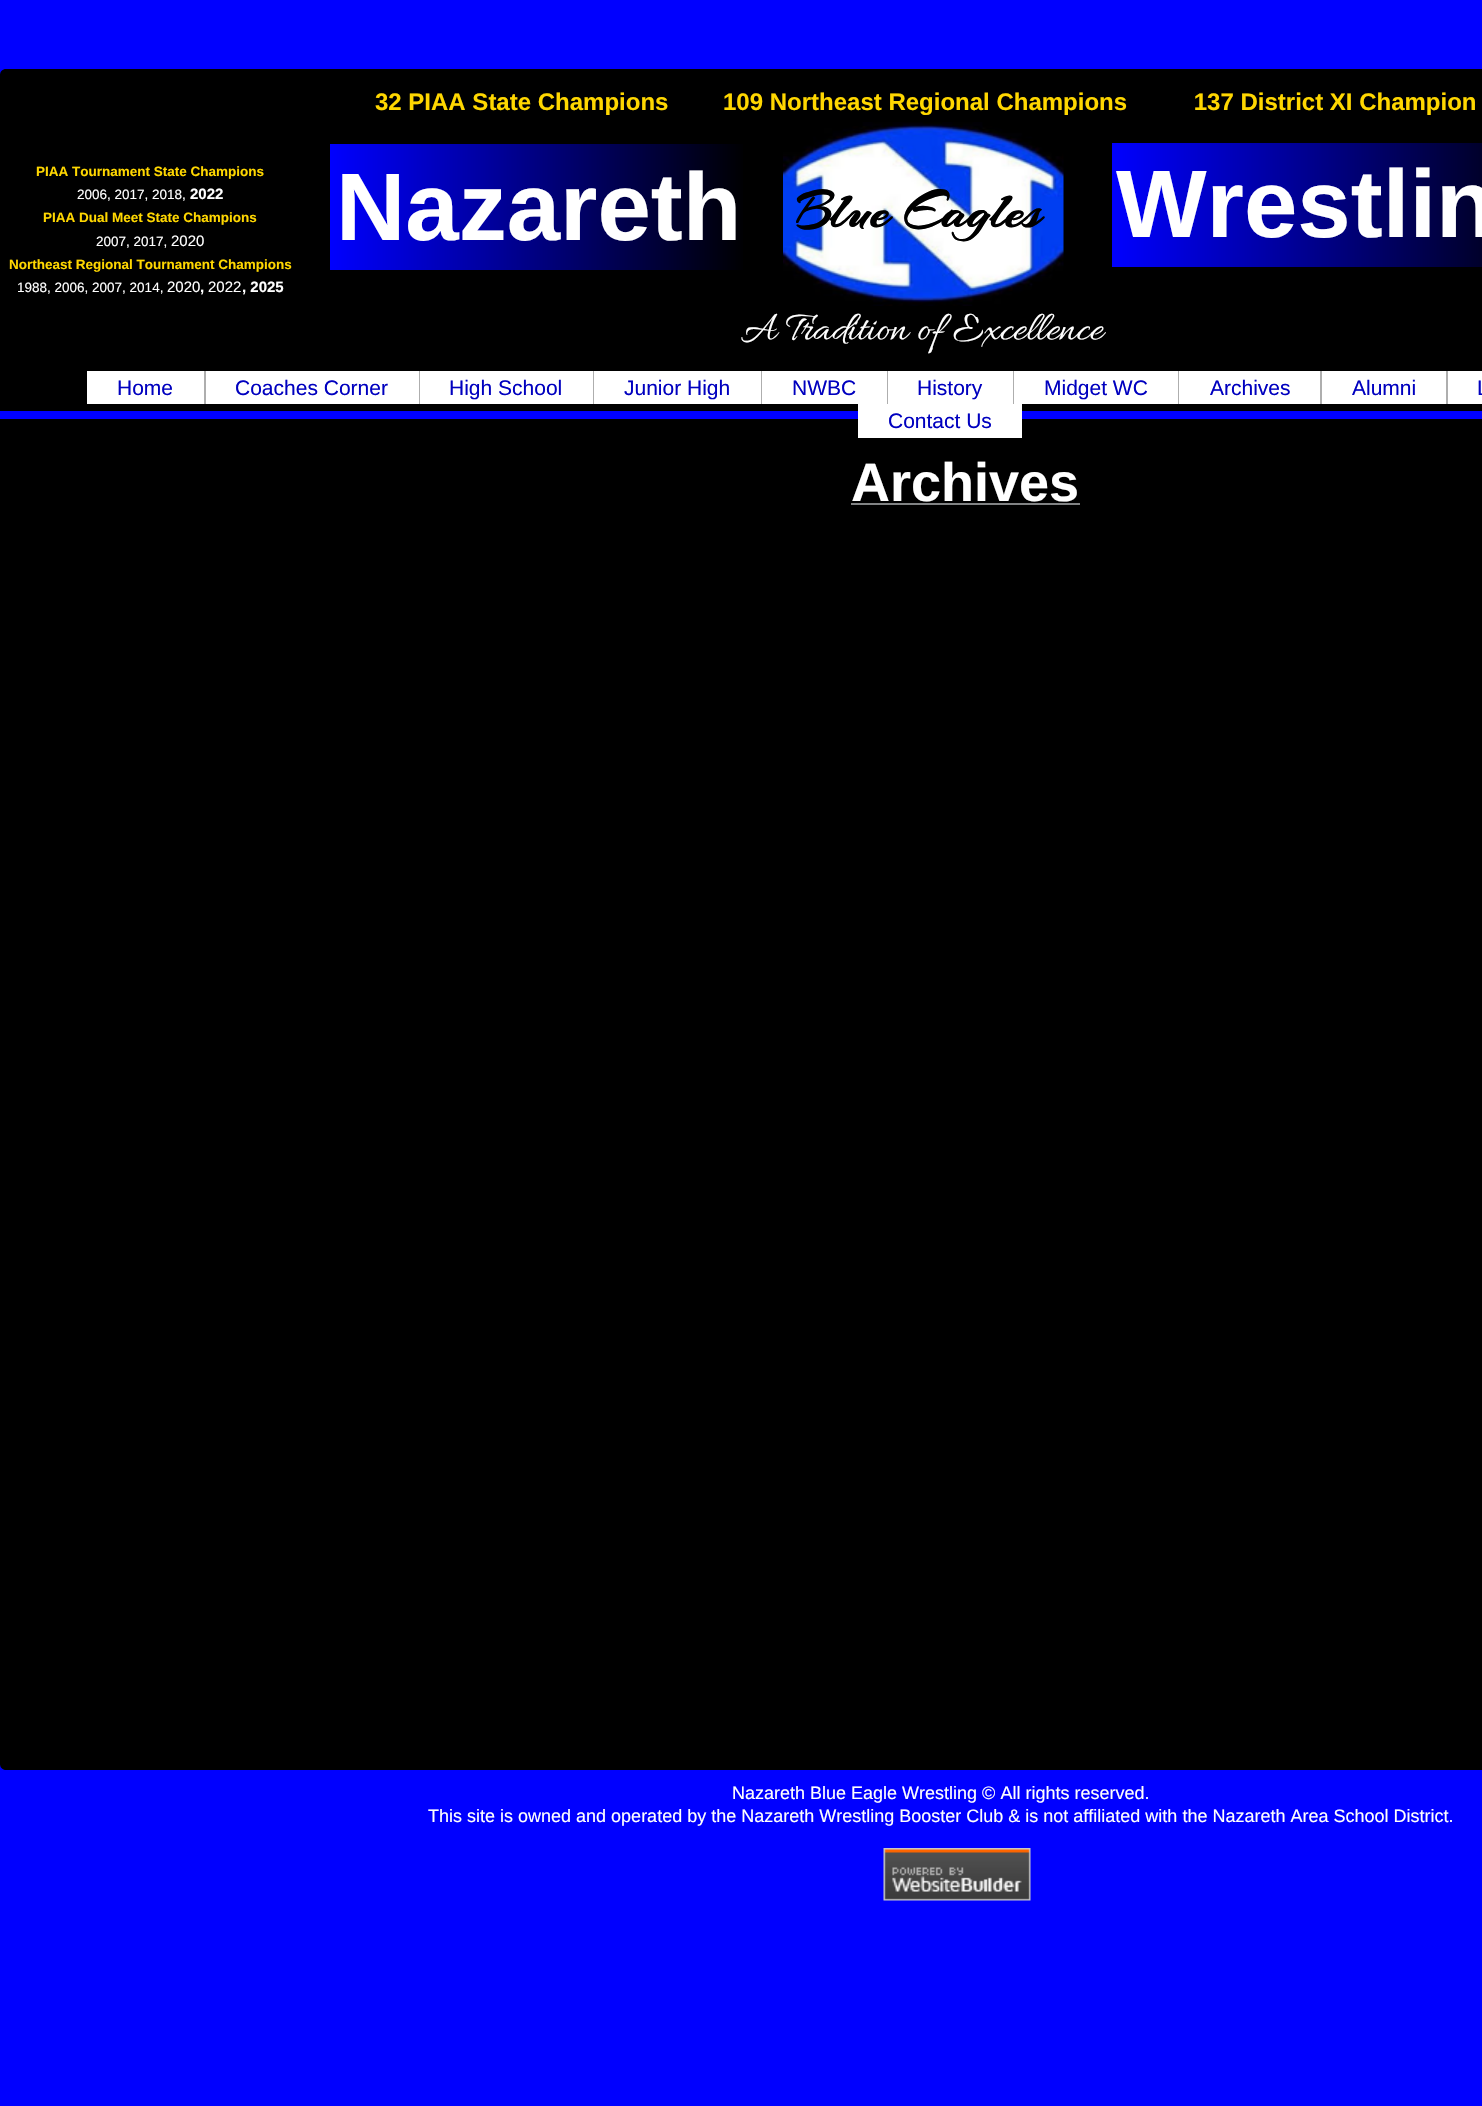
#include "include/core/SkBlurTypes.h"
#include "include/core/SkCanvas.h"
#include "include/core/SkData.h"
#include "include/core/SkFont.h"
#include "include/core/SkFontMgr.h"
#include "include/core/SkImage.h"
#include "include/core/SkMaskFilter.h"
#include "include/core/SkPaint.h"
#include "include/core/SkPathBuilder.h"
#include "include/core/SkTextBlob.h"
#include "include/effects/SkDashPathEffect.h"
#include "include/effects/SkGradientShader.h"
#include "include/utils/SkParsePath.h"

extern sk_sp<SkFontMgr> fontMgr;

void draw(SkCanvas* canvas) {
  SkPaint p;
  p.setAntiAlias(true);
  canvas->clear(SkColorSetRGB(0, 0, 255));
  p.setColor(SK_ColorBLACK);
  canvas->drawPath(SkPathBuilder().moveTo(6, 69).lineTo(1482, 69).lineTo(1482, 1770).lineTo(6, 1770).cubicTo(2.5f, 1770, 0, 1767.5f, 0, 1764).lineTo(0, 75).cubicTo(0, 71.5f, 2.5f, 69, 6, 69).close().detach(), p);
  {
    const SkColor colors[] = {SkColorSetRGB(0, 0, 255), SK_ColorBLACK};
    const float stops[] = {0, 1};
    const SkPoint ends[] = {{330, 207}, {747, 207}};
    p.setShader(SkGradientShader::MakeLinear(ends, colors, stops, 2, SkTileMode::kClamp));
    p.setAlpha(255);
  }
  canvas->drawRect(SkRect::MakeLTRB(330, 144, 743, 270), p);
  canvas->drawImageRect(SkImages::DeferredFromEncodedData(SkData::MakeFromFileName("images/1.png")), SkRect::MakeLTRB(783, 122, 1064, 306), SkSamplingOptions());
  {
    const SkColor colors[] = {SkColorSetRGB(0, 0, 255), SK_ColorBLACK};
    const float stops[] = {0, 1};
    const SkPoint ends[] = {{1112, 205}, {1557, 205}};
    p.setShader(SkGradientShader::MakeLinear(ends, colors, stops, 2, SkTileMode::kClamp));
    p.setAlpha(255);
  }
  canvas->drawRect(SkRect::MakeLTRB(1112, 143, 1482, 267), p);
  p.setShader(nullptr);
  p.setColor(SK_ColorWHITE);
  canvas->drawRect(SkRect::MakeLTRB(87, 371, 204, 404), p);
  p.setColor(SkColorSetRGB(174, 174, 174));
  canvas->drawRect(SkRect::MakeLTRB(204, 371, 206, 404), p);
  p.setColor(SK_ColorWHITE);
  canvas->drawRect(SkRect::MakeLTRB(206, 371, 419, 404), p);
  p.setColor(SkColorSetRGB(174, 174, 174));
  canvas->drawRect(SkRect::MakeLTRB(419, 371, 420, 404), p);
  p.setColor(SK_ColorWHITE);
  canvas->drawRect(SkRect::MakeLTRB(420, 371, 593, 404), p);
  p.setColor(SkColorSetRGB(174, 174, 174));
  canvas->drawRect(SkRect::MakeLTRB(593, 371, 594, 404), p);
  p.setColor(SK_ColorWHITE);
  canvas->drawRect(SkRect::MakeLTRB(594, 371, 761, 404), p);
  p.setColor(SkColorSetRGB(174, 174, 174));
  canvas->drawRect(SkRect::MakeLTRB(761, 371, 762, 404), p);
  p.setColor(SK_ColorWHITE);
  canvas->drawRect(SkRect::MakeLTRB(762, 371, 887, 404), p);
  p.setColor(SkColorSetRGB(174, 174, 174));
  canvas->drawRect(SkRect::MakeLTRB(887, 371, 888, 404), p);
  p.setColor(SK_ColorWHITE);
  canvas->drawRect(SkRect::MakeLTRB(888, 371, 1013, 404), p);
  p.setColor(SkColorSetRGB(174, 174, 174));
  canvas->drawRect(SkRect::MakeLTRB(1013, 371, 1014, 404), p);
  p.setColor(SK_ColorWHITE);
  canvas->drawRect(SkRect::MakeLTRB(1014, 371, 1178, 404), p);
  p.setColor(SkColorSetRGB(174, 174, 174));
  canvas->drawRect(SkRect::MakeLTRB(1178, 371, 1179, 404), p);
  p.setColor(SK_ColorWHITE);
  canvas->drawRect(SkRect::MakeLTRB(1179, 371, 1320, 404), p);
  p.setColor(SkColorSetRGB(174, 174, 174));
  canvas->drawRect(SkRect::MakeLTRB(1320, 371, 1322, 404), p);
  p.setColor(SK_ColorWHITE);
  canvas->drawRect(SkRect::MakeLTRB(1322, 371, 1446, 404), p);
  p.setColor(SkColorSetRGB(174, 174, 174));
  canvas->drawRect(SkRect::MakeLTRB(1446, 371, 1448, 404), p);
  p.setColor(SK_ColorWHITE);
  canvas->drawRect(SkRect::MakeLTRB(1448, 371, 1482, 404), p);
  p.setColor(SkColorSetRGB(0, 0, 255));
  canvas->drawRect(SkRect::MakeLTRB(0, 411, 1482, 419), p);
  p.setColor(SK_ColorWHITE);
  canvas->drawRect(SkRect::MakeLTRB(858, 404, 1022, 438), p);
  p.setColor(SkColorSetRGB(129, 131, 132));
  canvas->drawRect(SkRect::MakeLTRB(851, 503, 1080, 505), p);
  canvas->drawImageRect(SkImages::DeferredFromEncodedData(SkData::MakeFromFileName("images/2.png")), SkRect::MakeLTRB(883, 1848, 1031, 1901), SkSamplingOptions());
  SkFont font1(fontMgr->matchFamilyStyle("Liberation Sans", SkFontStyle::Bold()), 24);
  font1.setSubpixel(true);
  p.setColor(SkColorSetRGB(255, 215, 0));
  canvas->drawString("32 PIAA State Champions", 375, 110, font1, p);
  canvas->drawString("109 Northeast Regional Champions          137 District XI Champion", 723, 110, font1, p);
  SkFont font2(fontMgr->matchFamilyStyle("Liberation Sans", SkFontStyle::Bold()), 13.5f);
  font2.setSubpixel(true);
  canvas->drawString("PIAA Tournament State Champions", 36, 176, font2, p);
  SkFont font3(fontMgr->matchFamilyStyle("Liberation Sans", SkFontStyle::Normal()), 13.5f);
  font3.setSubpixel(true);
  p.setColor(SK_ColorWHITE);
  canvas->drawString("2006, 2017, 2018,", 77, 199, font3, p);
  SkFont font4(fontMgr->matchFamilyStyle("Liberation Sans", SkFontStyle::Bold()), 15);
  font4.setSubpixel(true);
  canvas->drawString("2022", 190, 199, font4, p);
  p.setColor(SkColorSetRGB(255, 215, 0));
  canvas->drawString("PIAA Dual Meet State Champions", 43, 222, font2, p);
  p.setColor(SK_ColorWHITE);
  canvas->drawString("2007, 2017,", 96, 246, font3, p);
  SkFont font5(fontMgr->matchFamilyStyle("Liberation Sans", SkFontStyle::Normal()), 15);
  font5.setSubpixel(true);
  canvas->drawString("2020", 171, 246, font5, p);
  p.setColor(SkColorSetRGB(255, 215, 0));
  canvas->drawString("Northeast Regional Tournament Champions", 9, 269, font2, p);
  p.setColor(SK_ColorWHITE);
  canvas->drawString("1988, 2006, 2007, 2014,", 17, 292, font3, p);
  canvas->drawString("2020", 167, 292, font5, p);
  canvas->drawString(",", 200, 292, font4, p);
  canvas->drawString("2022", 208, 292, font5, p);
  canvas->drawString(", 2025", 242, 292, font4, p);
  SkFont font6(fontMgr->matchFamilyStyle("Liberation Sans", SkFontStyle::Bold()), 96);
  font6.setSubpixel(true);
  canvas->drawString("Nazareth", 336, 240, font6, p);
  canvas->drawString("Wrestlin", 1116, 237, font6, p);
  SkFont font7(fontMgr->matchFamilyStyle("Arizonia", SkFontStyle::Bold()), 54);
  font7.setSubpixel(true);
  p.setColor(SK_ColorBLACK);
  canvas->drawString("Blue Eagles", 795, 227, font7, p);
  SkFont font8(fontMgr->matchFamilyStyle("Allura", SkFontStyle::Normal()), 42);
  font8.setSubpixel(true);
  p.setColor(SK_ColorWHITE);
  canvas->drawString("A Tradition of Excellence", 741, 339, font8, p);
  SkFont font9(fontMgr->matchFamilyStyle("Liberation Sans", SkFontStyle::Normal()), 21);
  font9.setSubpixel(true);
  p.setColor(SkColorSetRGB(0, 0, 191));
  canvas->drawString("Home", 117, 395, font9, p);
  canvas->drawString("Coaches Corner", 235, 395, font9, p);
  canvas->drawString("High School", 449, 395, font9, p);
  canvas->drawString("Junior High", 624, 395, font9, p);
  canvas->drawString("NWBC", 792, 395, font9, p);
  canvas->drawString("History", 917, 395, font9, p);
  canvas->drawString("Midget WC", 1044, 395, font9, p);
  canvas->drawString("Archives", 1210, 395, font9, p);
  canvas->drawString("Alumni", 1352, 395, font9, p);
  canvas->drawString("L", 1477, 395, font9, p);
  canvas->drawString("Contact Us", 888, 428, font9, p);
  SkFont font10(fontMgr->matchFamilyStyle("Liberation Sans", SkFontStyle::Bold()), 54);
  font10.setSubpixel(true);
  p.setColor(SK_ColorWHITE);
  canvas->drawString("Archives", 851, 501, font10, p);
  SkFont font11(fontMgr->matchFamilyStyle("Liberation Sans", SkFontStyle::Normal()), 18);
  font11.setSubpixel(true);
  canvas->drawString("Nazareth Blue Eagle Wrestling © All rights reserved.", 732, 1799, font11, p);
  canvas->drawString("This site is owned and operated by the Nazareth Wrestling Booster Club & is not affiliated with the Nazareth Area School District.", 428, 1822, font11, p);
}
